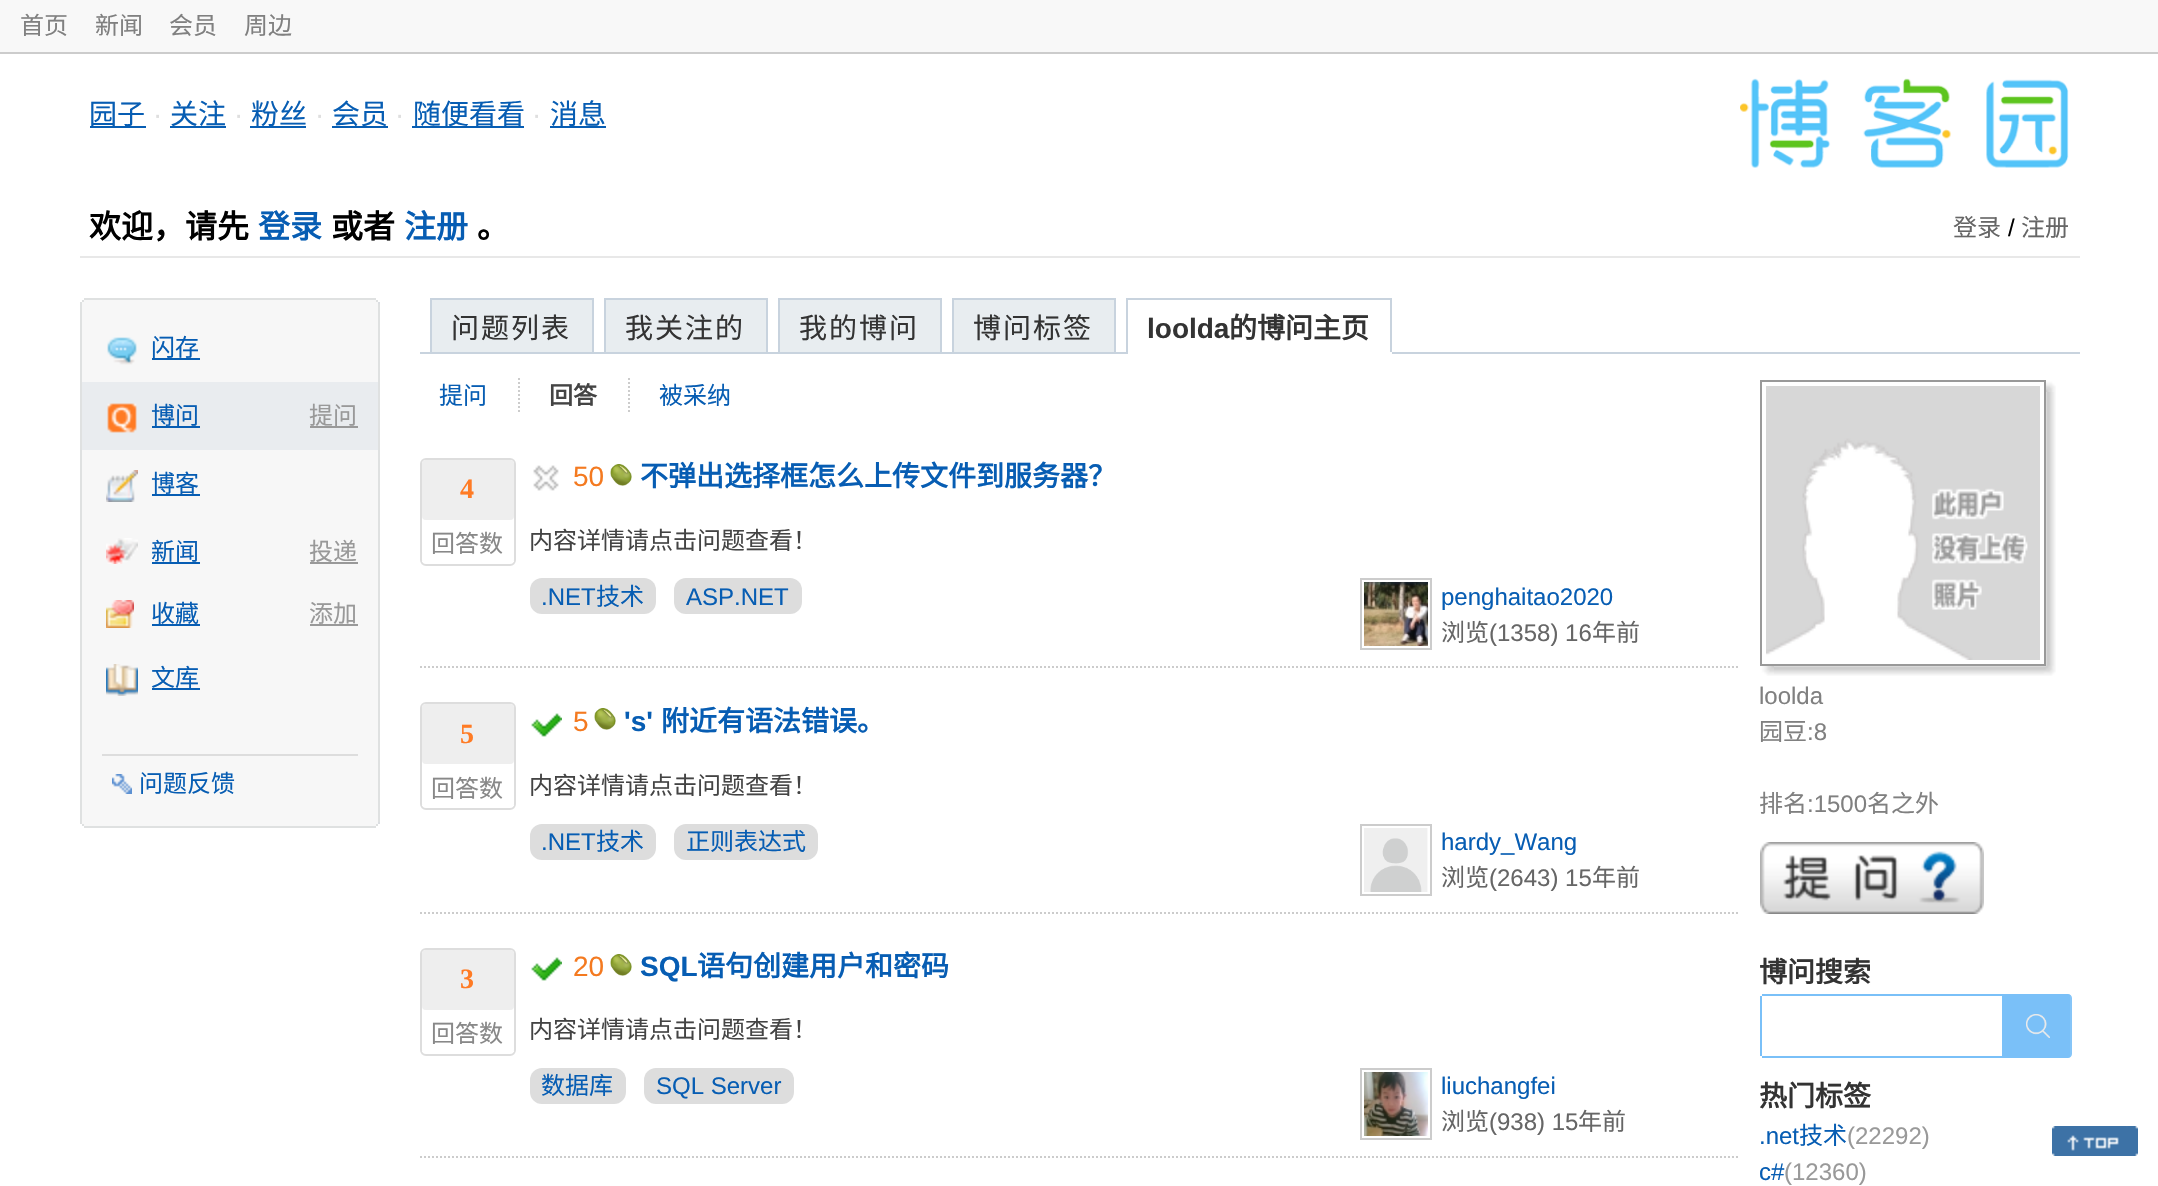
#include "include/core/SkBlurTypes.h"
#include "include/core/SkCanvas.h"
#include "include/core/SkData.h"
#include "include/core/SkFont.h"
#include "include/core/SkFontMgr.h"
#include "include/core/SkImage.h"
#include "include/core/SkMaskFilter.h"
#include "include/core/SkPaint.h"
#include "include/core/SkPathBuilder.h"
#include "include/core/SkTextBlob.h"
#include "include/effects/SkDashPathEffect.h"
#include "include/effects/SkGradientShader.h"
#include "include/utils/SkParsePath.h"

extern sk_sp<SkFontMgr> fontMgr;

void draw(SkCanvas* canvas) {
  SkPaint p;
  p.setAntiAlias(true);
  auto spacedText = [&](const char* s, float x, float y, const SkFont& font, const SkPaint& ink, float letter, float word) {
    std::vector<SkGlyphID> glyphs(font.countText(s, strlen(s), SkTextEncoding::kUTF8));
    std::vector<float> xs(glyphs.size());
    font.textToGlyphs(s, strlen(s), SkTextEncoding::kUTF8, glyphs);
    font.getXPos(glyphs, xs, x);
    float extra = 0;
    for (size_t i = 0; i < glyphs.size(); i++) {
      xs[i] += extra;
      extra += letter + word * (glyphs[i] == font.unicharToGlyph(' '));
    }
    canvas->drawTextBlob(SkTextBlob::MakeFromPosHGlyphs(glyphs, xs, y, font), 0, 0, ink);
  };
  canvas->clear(SK_ColorWHITE);
  p.setColor(SkColorSetRGB(248, 248, 248));
  canvas->drawRect(SkRect::MakeLTRB(0, 0, 2158, 52), p);
  p.setColor(SkColorSetRGB(204, 204, 204));
  canvas->drawRect(SkRect::MakeLTRB(0, 52, 2158, 54), p);
  p.setColor(SkColorSetRGB(232, 232, 232));
  canvas->drawRect(SkRect::MakeLTRB(80, 256, 2080, 258), p);
  p.setColor(SkColorSetRGB(7, 93, 179));
  canvas->drawRect(SkRect::MakeLTRB(90, 126, 146, 128), p);
  canvas->drawRect(SkRect::MakeLTRB(170, 126, 226, 128), p);
  canvas->drawRect(SkRect::MakeLTRB(250, 126, 306, 128), p);
  canvas->drawRect(SkRect::MakeLTRB(332, 126, 388, 128), p);
  canvas->drawRect(SkRect::MakeLTRB(412, 126, 524, 128), p);
  canvas->drawRect(SkRect::MakeLTRB(550, 126, 606, 128), p);
  canvas->drawImageRect(SkImages::DeferredFromEncodedData(SkData::MakeFromFileName("images/1.png")), SkRect::MakeLTRB(1740, 78, 2069, 168), SkSamplingOptions());
  p.setColor(SkColorSetRGB(223, 225, 225));
  canvas->drawRect(SkRect::MakeLTRB(84, 298, 376, 300), p);
  p.setColor(SkColorSetRGB(247, 247, 247));
  canvas->drawRect(SkRect::MakeLTRB(82, 300, 378, 302), p);
  p.setColor(SkColorSetRGB(223, 225, 225));
  canvas->drawRect(SkRect::MakeLTRB(376, 300, 378, 302), p);
  canvas->drawRect(SkRect::MakeLTRB(82, 300, 84, 302), p);
  p.setColor(SkColorSetRGB(247, 247, 247));
  canvas->drawRect(SkRect::MakeLTRB(80, 302, 380, 304), p);
  p.setColor(SkColorSetRGB(219, 222, 226));
  canvas->drawRect(SkRect::MakeLTRB(378, 302, 380, 304), p);
  p.setColor(SkColorSetRGB(223, 225, 225));
  canvas->drawRect(SkRect::MakeLTRB(80, 302, 82, 822), p);
  p.setColor(SkColorSetRGB(247, 247, 247));
  canvas->drawRect(SkRect::MakeLTRB(82, 304, 378, 822), p);
  p.setColor(SkColorSetRGB(223, 225, 225));
  canvas->drawRect(SkRect::MakeLTRB(378, 304, 380, 822), p);
  canvas->drawImageRect(SkImages::DeferredFromEncodedData(SkData::MakeFromFileName("images/2.png")), SkRect::MakeLTRB(107, 337, 137, 365), SkSamplingOptions());
  p.setColor(SkColorSetRGB(7, 93, 179));
  canvas->drawRect(SkRect::MakeLTRB(152, 358, 200, 360), p);
  p.setColor(SkColorSetRGB(233, 236, 239));
  canvas->drawRect(SkRect::MakeLTRB(82, 382, 378, 450), p);
  canvas->drawImageRect(SkImages::DeferredFromEncodedData(SkData::MakeFromFileName("images/3.png")), SkRect::MakeLTRB(107, 403, 137, 433), SkSamplingOptions());
  p.setColor(SkColorSetRGB(7, 93, 179));
  canvas->drawRect(SkRect::MakeLTRB(152, 426, 200, 428), p);
  p.setColor(SkColorSetRGB(153, 153, 153));
  canvas->drawRect(SkRect::MakeLTRB(310, 426, 358, 428), p);
  canvas->drawImageRect(SkImages::DeferredFromEncodedData(SkData::MakeFromFileName("images/4.png")), SkRect::MakeLTRB(106, 470, 138, 502), SkSamplingOptions());
  p.setColor(SkColorSetRGB(7, 93, 179));
  canvas->drawRect(SkRect::MakeLTRB(152, 494, 200, 496), p);
  canvas->drawImageRect(SkImages::DeferredFromEncodedData(SkData::MakeFromFileName("images/5.png")), SkRect::MakeLTRB(106, 538, 138, 564), SkSamplingOptions());
  canvas->drawRect(SkRect::MakeLTRB(152, 562, 200, 564), p);
  p.setColor(SkColorSetRGB(153, 153, 153));
  canvas->drawRect(SkRect::MakeLTRB(310, 562, 358, 564), p);
  canvas->drawImageRect(SkImages::DeferredFromEncodedData(SkData::MakeFromFileName("images/6.png")), SkRect::MakeLTRB(106, 600, 134, 628), SkSamplingOptions());
  p.setColor(SkColorSetRGB(7, 93, 179));
  canvas->drawRect(SkRect::MakeLTRB(152, 624, 200, 626), p);
  p.setColor(SkColorSetRGB(153, 153, 153));
  canvas->drawRect(SkRect::MakeLTRB(310, 624, 358, 626), p);
  canvas->drawImageRect(SkImages::DeferredFromEncodedData(SkData::MakeFromFileName("images/7.png")), SkRect::MakeLTRB(106, 664, 138, 696), SkSamplingOptions());
  p.setColor(SkColorSetRGB(7, 93, 179));
  canvas->drawRect(SkRect::MakeLTRB(152, 688, 200, 690), p);
  p.setColor(SkColorSetRGB(221, 221, 221));
  canvas->drawRect(SkRect::MakeLTRB(102, 754, 358, 756), p);
  canvas->drawImageRect(SkImages::DeferredFromEncodedData(SkData::MakeFromFileName("images/8.png")), SkRect::MakeLTRB(112, 774, 132, 794), SkSamplingOptions());
  p.setColor(SkColorSetRGB(247, 247, 247));
  canvas->drawRect(SkRect::MakeLTRB(80, 822, 380, 824), p);
  p.setColor(SkColorSetRGB(219, 222, 226));
  canvas->drawRect(SkRect::MakeLTRB(378, 822, 380, 824), p);
  p.setColor(SkColorSetRGB(223, 225, 225));
  canvas->drawRect(SkRect::MakeLTRB(80, 822, 82, 824), p);
  p.setColor(SkColorSetRGB(247, 247, 247));
  canvas->drawRect(SkRect::MakeLTRB(82, 824, 378, 826), p);
  p.setColor(SkColorSetRGB(223, 225, 225));
  canvas->drawRect(SkRect::MakeLTRB(376, 824, 378, 826), p);
  canvas->drawRect(SkRect::MakeLTRB(82, 824, 84, 826), p);
  canvas->drawRect(SkRect::MakeLTRB(84, 826, 376, 828), p);
  p.setColor(SkColorSetRGB(200, 211, 222));
  canvas->drawRect(SkRect::MakeLTRB(420, 352, 2080, 354), p);
  p.setColor(SkColorSetRGB(232, 237, 240));
  canvas->drawRect(SkRect::MakeLTRB(431, 299, 593, 353), p);
  p.setStyle(SkPaint::kStroke_Style);
  p.setStrokeWidth(2);
  p.setColor(SkColorSetRGB(200, 211, 222));
  canvas->drawRect(SkRect::MakeLTRB(431, 299, 593, 353), p);
  p.setStyle(SkPaint::kFill_Style);
  p.setColor(SkColorSetRGB(232, 237, 240));
  canvas->drawRect(SkRect::MakeLTRB(605, 299, 767, 353), p);
  p.setStyle(SkPaint::kStroke_Style);
  p.setColor(SkColorSetRGB(200, 211, 222));
  canvas->drawRect(SkRect::MakeLTRB(605, 299, 767, 353), p);
  p.setStyle(SkPaint::kFill_Style);
  p.setColor(SkColorSetRGB(232, 237, 240));
  canvas->drawRect(SkRect::MakeLTRB(779, 299, 941, 353), p);
  p.setStyle(SkPaint::kStroke_Style);
  p.setColor(SkColorSetRGB(200, 211, 222));
  canvas->drawRect(SkRect::MakeLTRB(779, 299, 941, 353), p);
  p.setStyle(SkPaint::kFill_Style);
  p.setColor(SkColorSetRGB(232, 237, 240));
  canvas->drawRect(SkRect::MakeLTRB(953, 299, 1115, 353), p);
  p.setStyle(SkPaint::kStroke_Style);
  p.setColor(SkColorSetRGB(200, 211, 222));
  canvas->drawRect(SkRect::MakeLTRB(953, 299, 1115, 353), p);
  p.setStyle(SkPaint::kFill_Style);
  canvas->drawRect(SkRect::MakeLTRB(1126, 298, 1392, 300), p);
  canvas->drawRect(SkRect::MakeLTRB(1390, 298, 1392, 354), p);
  p.setColor(SK_ColorWHITE);
  canvas->drawRect(SkRect::MakeLTRB(1126, 352, 1392, 354), p);
  p.setColor(SkColorSetRGB(200, 211, 222));
  canvas->drawRect(SkRect::MakeLTRB(1126, 298, 1128, 354), p);
  p.setStyle(SkPaint::kStroke_Style);
  p.setColor(SkColorSetRGB(204, 204, 204));
  p.setPathEffect(SkDashPathEffect::Make({{2, 2}}, 0));
  canvas->drawPath(SkPathBuilder().moveTo(519, 378).lineTo(519, 414).detach(), p);
  p.setPathEffect(nullptr);
  p.setPathEffect(SkDashPathEffect::Make({{2, 2}}, 0));
  canvas->drawPath(SkPathBuilder().moveTo(629, 378).lineTo(629, 414).detach(), p);
  p.setPathEffect(nullptr);
  p.setPathEffect(SkDashPathEffect::Make({{2, 2}}, 0));
  canvas->drawPath(SkPathBuilder().moveTo(420, 667).lineTo(1740, 667).detach(), p);
  p.setPathEffect(nullptr);
  p.setColor(SkColorSetRGB(221, 221, 221));
  canvas->drawRoundRect(SkRect::MakeLTRB(421, 459, 515, 565), 5, 5, p);
  p.setStyle(SkPaint::kFill_Style);
  p.setColor(SkColorSetRGB(238, 238, 238));
  canvas->drawRoundRect(SkRect::MakeLTRB(422, 460, 514, 520), 4, 4, p);
  p.setColor(SK_ColorWHITE);
  canvas->drawRect(SkRect::MakeLTRB(422, 561, 514, 562), p);
  canvas->drawImageRect(SkImages::DeferredFromEncodedData(SkData::MakeFromFileName("images/9.png")), SkRect::MakeLTRB(533, 465, 559, 491), SkSamplingOptions());
  canvas->drawImageRect(SkImages::DeferredFromEncodedData(SkData::MakeFromFileName("images/10.png")), SkRect::MakeLTRB(610, 464, 632, 486), SkSamplingOptions());
  p.setColor(SkColorSetRGB(221, 221, 221));
  canvas->drawRoundRect(SkRect::MakeLTRB(530, 578, 656, 614), 12, 12, p);
  canvas->drawRoundRect(SkRect::MakeLTRB(674, 578, 802, 614), 12, 12, p);
  p.setStyle(SkPaint::kStroke_Style);
  p.setColor(SkColorSetRGB(204, 204, 204));
  canvas->drawRect(SkRect::MakeLTRB(1361, 579, 1431, 649), p);
  canvas->drawImageRect(SkImages::DeferredFromEncodedData(SkData::MakeFromFileName("images/11.png")), SkRect::MakeLTRB(1364, 582, 1428, 646), SkSamplingOptions());
  p.setPathEffect(SkDashPathEffect::Make({{2, 2}}, 0));
  canvas->drawPath(SkPathBuilder().moveTo(420, 913).lineTo(1740, 913).detach(), p);
  p.setPathEffect(nullptr);
  p.setColor(SkColorSetRGB(221, 221, 221));
  canvas->drawRoundRect(SkRect::MakeLTRB(421, 703, 515, 809), 5, 5, p);
  p.setStyle(SkPaint::kFill_Style);
  p.setColor(SkColorSetRGB(238, 238, 238));
  canvas->drawRoundRect(SkRect::MakeLTRB(422, 704, 514, 764), 4, 4, p);
  p.setColor(SK_ColorWHITE);
  canvas->drawRect(SkRect::MakeLTRB(422, 805, 514, 806), p);
  canvas->drawImageRect(SkImages::DeferredFromEncodedData(SkData::MakeFromFileName("images/12.png")), SkRect::MakeLTRB(531, 713, 562, 737), SkSamplingOptions());
  canvas->drawImageRect(SkImages::DeferredFromEncodedData(SkData::MakeFromFileName("images/10.png")), SkRect::MakeLTRB(594, 708, 616, 730), SkSamplingOptions());
  p.setColor(SkColorSetRGB(221, 221, 221));
  canvas->drawRoundRect(SkRect::MakeLTRB(530, 824, 656, 860), 12, 12, p);
  canvas->drawRoundRect(SkRect::MakeLTRB(674, 824, 818, 860), 12, 12, p);
  p.setStyle(SkPaint::kStroke_Style);
  p.setColor(SkColorSetRGB(204, 204, 204));
  canvas->drawRect(SkRect::MakeLTRB(1361, 825, 1431, 895), p);
  canvas->drawImageRect(SkImages::DeferredFromEncodedData(SkData::MakeFromFileName("images/13.png")), SkRect::MakeLTRB(1364, 828, 1428, 892), SkSamplingOptions());
  p.setPathEffect(SkDashPathEffect::Make({{2, 2}}, 0));
  canvas->drawPath(SkPathBuilder().moveTo(420, 1157).lineTo(1740, 1157).detach(), p);
  p.setPathEffect(nullptr);
  p.setColor(SkColorSetRGB(221, 221, 221));
  canvas->drawRoundRect(SkRect::MakeLTRB(421, 949, 515, 1055), 5, 5, p);
  p.setStyle(SkPaint::kFill_Style);
  p.setColor(SkColorSetRGB(238, 238, 238));
  canvas->drawRoundRect(SkRect::MakeLTRB(422, 950, 514, 1010), 4, 4, p);
  p.setColor(SK_ColorWHITE);
  canvas->drawRect(SkRect::MakeLTRB(422, 1051, 514, 1052), p);
  canvas->drawImageRect(SkImages::DeferredFromEncodedData(SkData::MakeFromFileName("images/12.png")), SkRect::MakeLTRB(531, 957, 562, 981), SkSamplingOptions());
  canvas->drawImageRect(SkImages::DeferredFromEncodedData(SkData::MakeFromFileName("images/10.png")), SkRect::MakeLTRB(610, 954, 632, 976), SkSamplingOptions());
  p.setColor(SkColorSetRGB(221, 221, 221));
  canvas->drawRoundRect(SkRect::MakeLTRB(530, 1068, 626, 1104), 12, 12, p);
  canvas->drawRoundRect(SkRect::MakeLTRB(644, 1068, 794, 1104), 12, 12, p);
  p.setStyle(SkPaint::kStroke_Style);
  p.setColor(SkColorSetRGB(204, 204, 204));
  canvas->drawRect(SkRect::MakeLTRB(1361, 1069, 1431, 1139), p);
  canvas->drawImageRect(SkImages::DeferredFromEncodedData(SkData::MakeFromFileName("images/14.png")), SkRect::MakeLTRB(1364, 1072, 1428, 1136), SkSamplingOptions());
  canvas->drawImageRect(SkImages::DeferredFromEncodedData(SkData::MakeFromFileName("images/15.png")), SkRect::MakeLTRB(1774, 392, 2056, 676), SkSamplingOptions());
  canvas->drawImageRect(SkImages::DeferredFromEncodedData(SkData::MakeFromFileName("images/16.png")), SkRect::MakeLTRB(2046, 380, 2056, 392), SkSamplingOptions());
  canvas->drawImageRect(SkImages::DeferredFromEncodedData(SkData::MakeFromFileName("images/17.png")), SkRect::MakeLTRB(1760, 666, 1774, 676), SkSamplingOptions());
  p.setColor(SkColorSetRGB(153, 153, 153));
  canvas->drawRect(SkRect::MakeLTRB(1761, 381, 2045, 665), p);
  canvas->drawImageRect(SkImages::DeferredFromEncodedData(SkData::MakeFromFileName("images/18.png")), SkRect::MakeLTRB(1766, 386, 2040, 660), SkSamplingOptions());
  canvas->drawImageRect(SkImages::DeferredFromEncodedData(SkData::MakeFromFileName("images/19.png")), SkRect::MakeLTRB(1760, 842, 1984, 914), SkSamplingOptions());
  p.setStyle(SkPaint::kFill_Style);
  p.setColor(SkColorSetRGB(122, 192, 248));
  canvas->drawRect(SkRect::MakeLTRB(1762, 994, 2002, 996), p);
  canvas->drawRect(SkRect::MakeLTRB(1762, 1056, 2002, 1058), p);
  canvas->drawRect(SkRect::MakeLTRB(1760, 996, 1762, 1056), p);
  canvas->drawPath(SkPathBuilder().moveTo(2002, 994).lineTo(2068, 994).cubicTo(2070, 994, 2072, 996, 2072, 998).lineTo(2072, 1054).cubicTo(2072, 1056, 2070, 1058, 2068, 1058).lineTo(2002, 1058).close().detach(), p);
  canvas->drawImageRect(SkImages::DeferredFromEncodedData(SkData::MakeFromFileName("images/20.png")), SkRect::MakeLTRB(2026, 1014, 2050, 1038), SkSamplingOptions());
  p.setColor(SkColorSetARGB(26, 236, 246, 255));
  canvas->drawRect(SkRect::MakeLTRB(2070, 996, 2072, 1056), p);
  canvas->drawImageRect(SkImages::DeferredFromEncodedData(SkData::MakeFromFileName("images/21.png")), SkRect::MakeLTRB(2052, 1126, 2138, 1156), SkSamplingOptions());
  SkFont font1(fontMgr->matchFamilyStyle("Noto Sans CJK SC", SkFontStyle::Normal()), 24);
  font1.setSubpixel(true);
  p.setColor(SkColorSetRGB(128, 128, 128));
  canvas->drawString("首页", 20, 34, font1, p);
  canvas->drawString("新闻", 95, 34, font1, p);
  canvas->drawString("会员", 169, 34, font1, p);
  canvas->drawString("周边", 244, 34, font1, p);
  SkFont font2(fontMgr->matchFamilyStyle("Noto Sans CJK SC", SkFontStyle::Normal()), 28);
  font2.setSubpixel(true);
  p.setColor(SkColorSetRGB(7, 93, 179));
  canvas->drawString("园子", 89, 124, font2, p);
  SkFont font3(fontMgr->matchFamilyStyle("Liberation Sans", SkFontStyle::Normal()), 28);
  font3.setSubpixel(true);
  p.setColor(SkColorSetRGB(223, 223, 223));
  canvas->drawString("·", 153, 124, font3, p);
  p.setColor(SkColorSetRGB(7, 93, 179));
  canvas->drawString("关注", 170, 124, font2, p);
  p.setColor(SkColorSetRGB(223, 223, 223));
  canvas->drawString("·", 234, 124, font3, p);
  p.setColor(SkColorSetRGB(7, 93, 179));
  canvas->drawString("粉丝", 251, 124, font2, p);
  p.setColor(SkColorSetRGB(223, 223, 223));
  canvas->drawString("·", 315, 124, font3, p);
  p.setColor(SkColorSetRGB(7, 93, 179));
  canvas->drawString("会员", 332, 124, font2, p);
  p.setColor(SkColorSetRGB(223, 223, 223));
  canvas->drawString("·", 395, 124, font3, p);
  p.setColor(SkColorSetRGB(7, 93, 179));
  canvas->drawString("随便看看", 413, 124, font2, p);
  p.setColor(SkColorSetRGB(223, 223, 223));
  canvas->drawString("·", 532, 124, font3, p);
  p.setColor(SkColorSetRGB(7, 93, 179));
  canvas->drawString("消息", 550, 124, font2, p);
  SkFont font4(fontMgr->matchFamilyStyle("Noto Sans CJK SC", SkFontStyle::Bold()), 32);
  font4.setSubpixel(true);
  p.setColor(SK_ColorBLACK);
  canvas->drawString("欢迎，请先", 89, 238, font4, p);
  p.setColor(SkColorSetRGB(7, 93, 179));
  canvas->drawString("登录", 258, 238, font4, p);
  p.setColor(SK_ColorBLACK);
  canvas->drawString("或者", 331, 238, font4, p);
  p.setColor(SkColorSetRGB(7, 93, 179));
  canvas->drawString("注册", 404, 238, font4, p);
  p.setColor(SK_ColorBLACK);
  canvas->drawString("。", 477, 238, font4, p);
  p.setColor(SkColorSetRGB(102, 102, 102));
  canvas->drawString("登录", 1953, 236, font1, p);
  SkFont font5(fontMgr->matchFamilyStyle("Liberation Sans", SkFontStyle::Normal()), 24);
  font5.setSubpixel(true);
  p.setColor(SK_ColorBLACK);
  canvas->drawString("/", 2008, 236, font5, p);
  p.setColor(SkColorSetRGB(102, 102, 102));
  canvas->drawString("注册", 2021, 236, font1, p);
  p.setColor(SkColorSetRGB(7, 93, 179));
  canvas->drawString("闪存", 151, 356, font1, p);
  canvas->drawString("博问", 151, 424, font1, p);
  p.setColor(SkColorSetRGB(153, 153, 153));
  canvas->drawString("提问", 309, 424, font1, p);
  p.setColor(SkColorSetRGB(7, 93, 179));
  canvas->drawString("博客", 151, 492, font1, p);
  canvas->drawString("新闻", 151, 560, font1, p);
  p.setColor(SkColorSetRGB(153, 153, 153));
  canvas->drawString("投递", 309, 560, font1, p);
  p.setColor(SkColorSetRGB(7, 93, 179));
  canvas->drawString("收藏", 151, 622, font1, p);
  p.setColor(SkColorSetRGB(153, 153, 153));
  canvas->drawString("添加", 309, 622, font1, p);
  p.setColor(SkColorSetRGB(7, 93, 179));
  canvas->drawString("文库", 151, 686, font1, p);
  canvas->drawString("问题反馈", 139, 792, font1, p);
  p.setColor(SkColorSetRGB(51, 51, 51));
  spacedText("问题列表", 451, 338, font2, p, 2, 0);
  spacedText("我关注的", 625, 338, font2, p, 2, 0);
  spacedText("我的博问", 799, 338, font2, p, 2, 0);
  spacedText("博问标签", 973, 338, font2, p, 2, 0);
  SkFont font6(fontMgr->matchFamilyStyle("Liberation Sans", SkFontStyle::Bold()), 28);
  font6.setSubpixel(true);
  canvas->drawString("loolda", 1147, 338, font6, p);
  SkFont font7(fontMgr->matchFamilyStyle("Noto Sans CJK SC", SkFontStyle::Bold()), 28);
  font7.setSubpixel(true);
  canvas->drawString("的博问主页", 1229, 338, font7, p);
  p.setColor(SkColorSetRGB(7, 93, 179));
  canvas->drawString("提问", 439, 404, font1, p);
  SkFont font8(fontMgr->matchFamilyStyle("Noto Sans CJK SC", SkFontStyle::Bold()), 24);
  font8.setSubpixel(true);
  p.setColor(SkColorSetRGB(68, 68, 68));
  canvas->drawString("回答", 549, 404, font8, p);
  p.setColor(SkColorSetRGB(7, 93, 179));
  canvas->drawString("被采纳", 659, 404, font1, p);
  SkFont font9(fontMgr->matchFamilyStyle("Liberation Serif", SkFontStyle::Bold()), 28);
  font9.setSubpixel(true);
  p.setColor(SkColorSetRGB(255, 123, 36));
  canvas->drawString("4", 460, 498, font9, p);
  p.setColor(SkColorSetRGB(136, 136, 136));
  canvas->drawString("回答数", 431, 552, font1, p);
  p.setColor(SkColorSetRGB(244, 122, 32));
  canvas->drawString("50", 573, 486, font3, p);
  p.setColor(SkColorSetRGB(7, 93, 179));
  canvas->drawString("不弹出选择框怎么上传文件到服务器？", 640, 486, font7, p);
  p.setColor(SkColorSetRGB(68, 68, 68));
  canvas->drawString("内容详情请点击问题查看！", 529, 549, font1, p);
  p.setColor(SkColorSetRGB(7, 93, 179));
  canvas->drawString(".NET", 541, 605, font5, p);
  canvas->drawString("技术", 596, 605, font1, p);
  canvas->drawString("ASP.NET", 686, 605, font5, p);
  canvas->drawString("penghaitao2020", 1441, 605, font5, p);
  p.setColor(SkColorSetRGB(102, 102, 102));
  canvas->drawString("浏览", 1441, 641, font1, p);
  canvas->drawString("(1358) 16", 1489, 641, font5, p);
  canvas->drawString("年前", 1592, 641, font1, p);
  p.setColor(SkColorSetRGB(255, 123, 36));
  canvas->drawString("5", 460, 743, font9, p);
  p.setColor(SkColorSetRGB(136, 136, 136));
  canvas->drawString("回答数", 431, 797, font1, p);
  p.setColor(SkColorSetRGB(244, 122, 32));
  canvas->drawString("5", 573, 731, font3, p);
  p.setColor(SkColorSetRGB(7, 93, 179));
  canvas->drawString("'s'", 624, 731, font6, p);
  canvas->drawString("附近有语法错误。", 661, 731, font7, p);
  p.setColor(SkColorSetRGB(68, 68, 68));
  canvas->drawString("内容详情请点击问题查看！", 529, 794, font1, p);
  p.setColor(SkColorSetRGB(7, 93, 179));
  canvas->drawString(".NET", 541, 850, font5, p);
  canvas->drawString("技术", 596, 850, font1, p);
  canvas->drawString("正则表达式", 686, 850, font1, p);
  canvas->drawString("hardy_Wang", 1441, 850, font5, p);
  p.setColor(SkColorSetRGB(102, 102, 102));
  canvas->drawString("浏览", 1441, 886, font1, p);
  canvas->drawString("(2643) 15", 1489, 886, font5, p);
  canvas->drawString("年前", 1592, 886, font1, p);
  p.setColor(SkColorSetRGB(255, 123, 36));
  canvas->drawString("3", 460, 988, font9, p);
  p.setColor(SkColorSetRGB(136, 136, 136));
  canvas->drawString("回答数", 431, 1042, font1, p);
  p.setColor(SkColorSetRGB(244, 122, 32));
  canvas->drawString("20", 573, 976, font3, p);
  p.setColor(SkColorSetRGB(7, 93, 179));
  canvas->drawString("SQL", 640, 976, font6, p);
  canvas->drawString("语句创建用户和密码", 697, 976, font7, p);
  p.setColor(SkColorSetRGB(68, 68, 68));
  canvas->drawString("内容详情请点击问题查看！", 529, 1038, font1, p);
  p.setColor(SkColorSetRGB(7, 93, 179));
  canvas->drawString("数据库", 541, 1094, font1, p);
  canvas->drawString("SQL Server", 656, 1094, font5, p);
  canvas->drawString("liuchangfei", 1441, 1094, font5, p);
  p.setColor(SkColorSetRGB(102, 102, 102));
  canvas->drawString("浏览", 1441, 1130, font1, p);
  canvas->drawString("(938) 15", 1489, 1130, font5, p);
  canvas->drawString("年前", 1578, 1130, font1, p);
  p.setColor(SkColorSetRGB(128, 128, 128));
  canvas->drawString("loolda", 1759, 704, font5, p);
  canvas->drawString("园豆", 1759, 740, font1, p);
  canvas->drawString(":8", 1807, 740, font5, p);
  canvas->drawString("排名", 1759, 812, font1, p);
  canvas->drawString(":1500", 1807, 812, font5, p);
  canvas->drawString("名之外", 1867, 812, font1, p);
  p.setColor(SkColorSetRGB(51, 51, 51));
  canvas->drawString("博问搜索", 1759, 982, font7, p);
  canvas->drawString("热门标签", 1759, 1106, font7, p);
  p.setColor(SkColorSetRGB(7, 93, 179));
  canvas->drawString(".net", 1759, 1144, font5, p);
  canvas->drawString("技术", 1799, 1144, font1, p);
  p.setColor(SkColorSetRGB(153, 153, 153));
  canvas->drawString("(22292)", 1847, 1144, font5, p);
  p.setColor(SkColorSetRGB(7, 93, 179));
  canvas->drawString("c#", 1759, 1180, font5, p);
  p.setColor(SkColorSetRGB(153, 153, 153));
  canvas->drawString("(12360)", 1784, 1180, font5, p);
}
